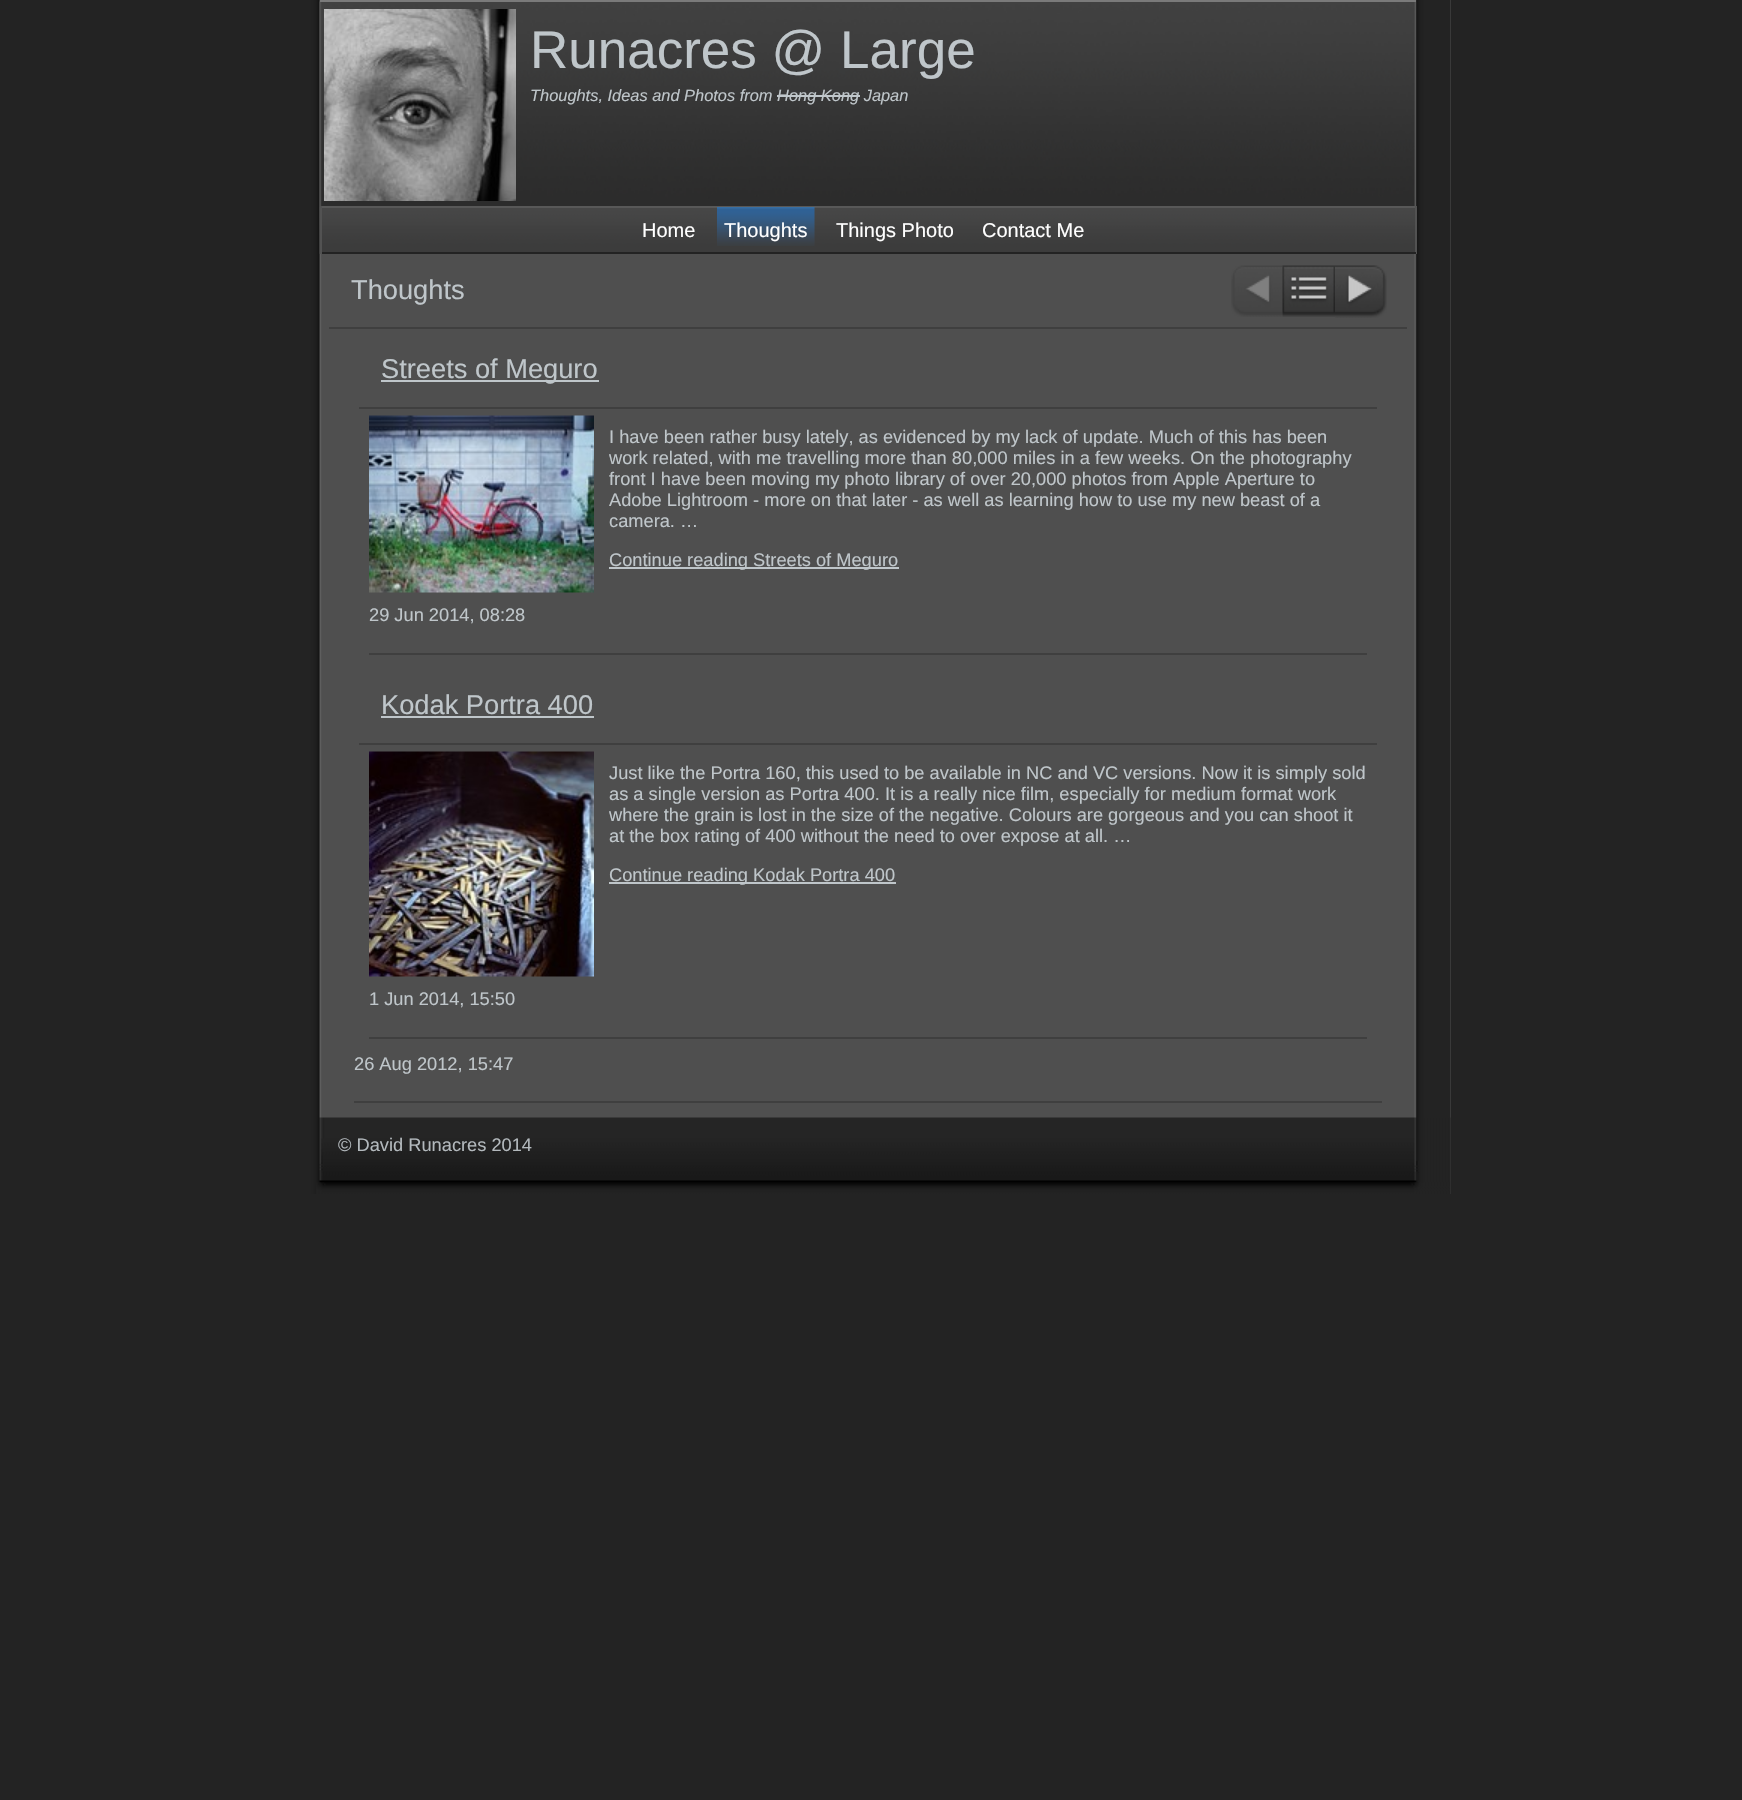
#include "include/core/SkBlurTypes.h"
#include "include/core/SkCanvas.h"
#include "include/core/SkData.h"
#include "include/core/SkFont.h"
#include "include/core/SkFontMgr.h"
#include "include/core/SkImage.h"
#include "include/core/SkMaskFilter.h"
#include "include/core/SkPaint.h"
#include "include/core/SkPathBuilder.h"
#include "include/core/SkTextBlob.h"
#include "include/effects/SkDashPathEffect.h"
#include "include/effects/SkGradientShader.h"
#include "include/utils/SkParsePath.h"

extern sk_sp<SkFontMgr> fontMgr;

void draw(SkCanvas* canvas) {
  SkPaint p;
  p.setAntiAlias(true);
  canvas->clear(SkColorSetRGB(35, 35, 35));
  p.setColor(SkColorSetRGB(79, 79, 79));
  canvas->drawRect(SkRect::MakeLTRB(1450, 0, 1451, 1194), p);
  canvas->drawImageRect(SkImages::DeferredFromEncodedData(SkData::MakeFromFileName("images/1.png")), SkRect::MakeLTRB(294, 0, 1451, 1194), SkSamplingOptions());
  canvas->drawImageRect(SkImages::DeferredFromEncodedData(SkData::MakeFromFileName("images/2.png")), SkRect::MakeLTRB(319, 1, 1415, 254), SkSamplingOptions());
  p.setColor(SkColorSetRGB(122, 122, 122));
  canvas->drawRect(SkRect::MakeLTRB(320, 0, 1416, 2), p);
  canvas->drawImageRect(SkImages::DeferredFromEncodedData(SkData::MakeFromFileName("images/3.png")), SkRect::MakeLTRB(324, 9, 516, 201), SkSamplingOptions());
  p.setColor(SkColorSetRGB(191, 198, 202));
  canvas->drawRect(SkRect::MakeLTRB(777, 95, 860, 97), p);
  canvas->drawImageRect(SkImages::DeferredFromEncodedData(SkData::MakeFromFileName("images/4.png")), SkRect::MakeLTRB(319, 207, 1415, 254), SkSamplingOptions());
  p.setColor(SkColorSetRGB(88, 88, 88));
  canvas->drawRect(SkRect::MakeLTRB(320, 206, 1416, 208), p);
  p.setColor(SkColorSetRGB(82, 82, 82));
  canvas->drawRect(SkRect::MakeLTRB(1415, 206, 1417, 254), p);
  p.setColor(SkColorSetRGB(35, 35, 35));
  canvas->drawRect(SkRect::MakeLTRB(320, 252, 1416, 254), p);
  p.setColor(SkColorSetRGB(82, 82, 82));
  canvas->drawRect(SkRect::MakeLTRB(320, 206, 322, 254), p);
  canvas->drawImageRect(SkImages::DeferredFromEncodedData(SkData::MakeFromFileName("images/5.png")), SkRect::MakeLTRB(717, 207, 815, 246), SkSamplingOptions());
  p.setColor(SkColorSetRGB(63, 63, 63));
  canvas->drawRect(SkRect::MakeLTRB(329, 327, 1407, 329), p);
  canvas->drawImageRect(SkImages::DeferredFromEncodedData(SkData::MakeFromFileName("images/6.png")), SkRect::MakeLTRB(1231, 265, 1283, 317), SkSamplingOptions());
  canvas->drawImageRect(SkImages::DeferredFromEncodedData(SkData::MakeFromFileName("images/7.png")), SkRect::MakeLTRB(1282, 265, 1335, 316), SkSamplingOptions());
  canvas->drawImageRect(SkImages::DeferredFromEncodedData(SkData::MakeFromFileName("images/8.png")), SkRect::MakeLTRB(1282, 265, 1335, 317), SkSamplingOptions());
  canvas->drawImageRect(SkImages::DeferredFromEncodedData(SkData::MakeFromFileName("images/9.png")), SkRect::MakeLTRB(1335, 265, 1386, 266), SkSamplingOptions());
  canvas->drawImageRect(SkImages::DeferredFromEncodedData(SkData::MakeFromFileName("images/10.png")), SkRect::MakeLTRB(1335, 265, 1387, 318), SkSamplingOptions());
  canvas->drawRect(SkRect::MakeLTRB(354, 1101, 1382, 1103), p);
  canvas->drawRect(SkRect::MakeLTRB(369, 653, 1367, 655), p);
  canvas->drawRect(SkRect::MakeLTRB(359, 407, 1377, 409), p);
  p.setColor(SkColorSetRGB(191, 198, 202));
  canvas->drawRect(SkRect::MakeLTRB(381, 380, 599, 382), p);
  canvas->drawImageRect(SkImages::DeferredFromEncodedData(SkData::MakeFromFileName("images/11.png")), SkRect::MakeLTRB(369, 415, 594, 593), SkSamplingOptions());
  canvas->drawRect(SkRect::MakeLTRB(609, 567, 899, 569), p);
  p.setColor(SkColorSetRGB(63, 63, 63));
  canvas->drawRect(SkRect::MakeLTRB(369, 1037, 1367, 1039), p);
  canvas->drawRect(SkRect::MakeLTRB(359, 743, 1377, 745), p);
  p.setColor(SkColorSetRGB(191, 198, 202));
  canvas->drawRect(SkRect::MakeLTRB(381, 716, 594, 718), p);
  canvas->drawImageRect(SkImages::DeferredFromEncodedData(SkData::MakeFromFileName("images/12.png")), SkRect::MakeLTRB(369, 751, 594, 977), SkSamplingOptions());
  canvas->drawRect(SkRect::MakeLTRB(609, 882, 896, 884), p);
  canvas->drawImageRect(SkImages::DeferredFromEncodedData(SkData::MakeFromFileName("images/13.png")), SkRect::MakeLTRB(316, 1117, 1451, 1194), SkSamplingOptions());
  SkFont font1(fontMgr->matchFamilyStyle("Liberation Sans", SkFontStyle::Normal()), 53);
  font1.setSubpixel(true);
  canvas->drawString("Runacres @ Large", 530, 68, font1, p);
  SkFont font2(fontMgr->matchFamilyStyle("Liberation Sans", SkFontStyle::Italic()), 16.4f);
  font2.setSubpixel(true);
  canvas->drawString("Thoughts, Ideas and Photos from Hong Kong Japan", 530, 101, font2, p);
  SkFont font3(fontMgr->matchFamilyStyle("Liberation Sans", SkFontStyle::Normal()), 20);
  font3.setSubpixel(true);
  p.setColor(SK_ColorWHITE);
  canvas->drawString("Home", 642, 237, font3, p);
  canvas->drawString("Thoughts", 724, 237, font3, p);
  canvas->drawString("Things Photo", 836, 237, font3, p);
  canvas->drawString("Contact Me", 982, 237, font3, p);
  SkFont font4(fontMgr->matchFamilyStyle("Liberation Sans", SkFontStyle::Normal()), 27.25f);
  font4.setSubpixel(true);
  p.setColor(SkColorSetRGB(191, 198, 202));
  canvas->drawString("Thoughts", 351, 299, font4, p);
  canvas->drawString("Streets of Meguro", 381, 378, font4, p);
  SkFont font5(fontMgr->matchFamilyStyle("Liberation Sans", SkFontStyle::Normal()), 18.25f);
  font5.setSubpixel(true);
  canvas->drawString("I have been rather busy lately, as evidenced by my lack of update. Much of this has been", 609, 443, font5, p);
  canvas->drawString("work related, with me travelling more than 80,000 miles in a few weeks. On the photography", 609, 464, font5, p);
  canvas->drawString("front I have been moving my photo library of over 20,000 photos from Apple Aperture to", 609, 485, font5, p);
  canvas->drawString("Adobe Lightroom - more on that later - as well as learning how to use my new beast of a", 609, 506, font5, p);
  canvas->drawString("camera. …", 609, 527, font5, p);
  canvas->drawString("Continue reading Streets of Meguro", 609, 566, font5, p);
  canvas->drawString("29 Jun 2014, 08:28", 369, 621, font5, p);
  canvas->drawString("Kodak Portra 400", 381, 714, font4, p);
  canvas->drawString("Just like the Portra 160, this used to be available in NC and VC versions. Now it is simply sold", 609, 779, font5, p);
  canvas->drawString("as a single version as Portra 400. It is a really nice film, especially for medium format work", 609, 800, font5, p);
  canvas->drawString("where the grain is lost in the size of the negative. Colours are gorgeous and you can shoot it", 609, 821, font5, p);
  canvas->drawString("at the box rating of 400 without the need to over expose at all. …", 609, 842, font5, p);
  canvas->drawString("Continue reading Kodak Portra 400", 609, 881, font5, p);
  canvas->drawString("1 Jun 2014, 15:50", 369, 1005, font5, p);
  canvas->drawString("26 Aug 2012, 15:47", 354, 1070, font5, p);
  p.setColor(SkColorSetRGB(179, 185, 189));
  canvas->drawString("© David Runacres 2014", 338, 1151, font5, p);
}
